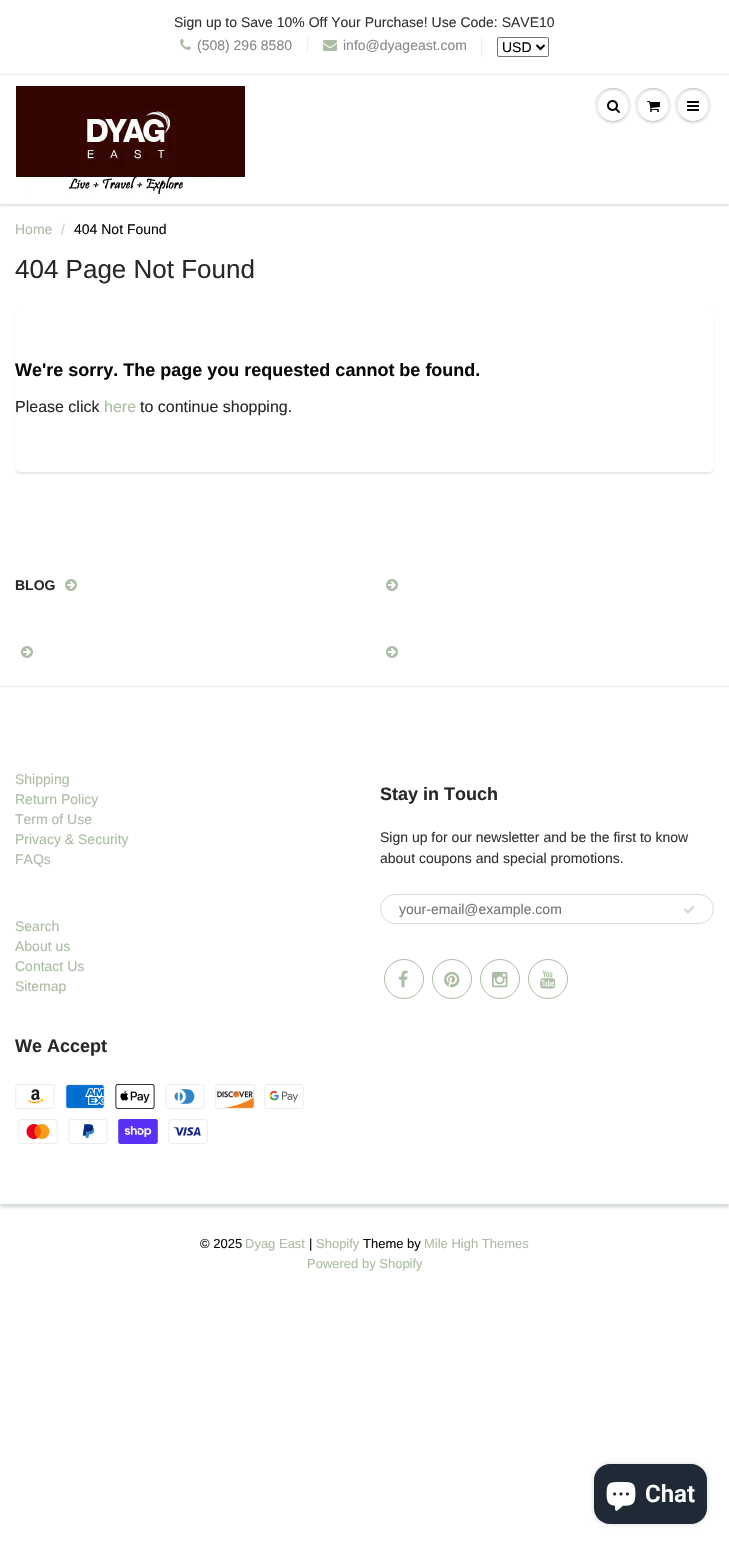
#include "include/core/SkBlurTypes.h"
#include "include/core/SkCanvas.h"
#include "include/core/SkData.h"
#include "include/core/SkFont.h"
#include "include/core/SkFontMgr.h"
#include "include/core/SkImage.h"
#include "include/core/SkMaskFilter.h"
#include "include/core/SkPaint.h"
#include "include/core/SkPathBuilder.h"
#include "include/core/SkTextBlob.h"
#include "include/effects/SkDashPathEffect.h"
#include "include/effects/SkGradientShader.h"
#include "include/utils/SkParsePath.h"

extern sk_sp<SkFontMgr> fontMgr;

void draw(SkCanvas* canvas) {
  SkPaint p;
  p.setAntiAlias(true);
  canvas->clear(SK_ColorWHITE);
  canvas->drawImageRect(SkImages::DeferredFromEncodedData(SkData::MakeFromFileName("images/1.png")), SkRect::MakeLTRB(180, 39, 191, 50), SkSamplingOptions());
  p.setColor(SkColorSetRGB(236, 239, 239));
  canvas->drawRect(SkRect::MakeLTRB(307, 37, 308, 53), p);
  canvas->drawImageRect(SkImages::DeferredFromEncodedData(SkData::MakeFromFileName("images/2.png")), SkRect::MakeLTRB(323, 40, 337, 51), SkSamplingOptions());
  canvas->drawRect(SkRect::MakeLTRB(481, 37, 482, 57), p);
  p.setStyle(SkPaint::kStroke_Style);
  p.setStrokeWidth(1);
  p.setColor(SkColorSetRGB(118, 118, 118));
  canvas->drawRoundRect(SkRect::MakeLTRB(497.5f, 37.5f, 548.5f, 56.5f), 1.5f, 1.5f, p);
  p.setStrokeWidth(2);
  p.setColor(SK_ColorBLACK);
  canvas->drawPath(SkPathBuilder().moveTo(536.5f, 45).lineTo(540.5f, 49).lineTo(544.5f, 45).detach(), p);
  canvas->save();
  canvas->clipRect(SkRect::MakeLTRB(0, 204, 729, 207));
  p.setStyle(SkPaint::kFill_Style);
  p.setColor(SkColorSetARGB(31, 11, 25, 28));
  p.setMaskFilter(SkMaskFilter::MakeBlur(kNormal_SkBlurStyle, 1));
  canvas->drawRect(SkRect::MakeLTRB(0, 76, 729, 206), p);
  p.setMaskFilter(nullptr);
  canvas->restore();
  p.setColor(SkColorSetRGB(236, 239, 239));
  canvas->drawRect(SkRect::MakeLTRB(0, 74, 729, 75), p);
  canvas->drawImageRect(SkImages::DeferredFromEncodedData(SkData::MakeFromFileName("images/3.png")), SkRect::MakeLTRB(16, 86, 245, 194), SkSamplingOptions());
  p.setColor(SkColorSetRGB(237, 239, 239));
  canvas->drawCircle(613, 106, 18, p);
  p.setColor(SkColorSetRGB(201, 203, 203));
  canvas->drawPath(SkPathBuilder().moveTo(613, 89).cubicTo(625, 89, 631, 97.5f, 631, 106.5f).cubicTo(631, 103, 630, 99, 628, 96).cubicTo(618, 81, 594.5f, 88.5f, 595, 106.5f).cubicTo(595, 97.5f, 601, 89, 613, 89).close().detach(), p);
  canvas->drawPath(SkPathBuilder().moveTo(628, 106.5f).cubicTo(627.5f, 125.5f, 598.5f, 125.5f, 598, 106.5f).cubicTo(597.5f, 121.5f, 617, 128, 625.5f, 115.5f).cubicTo(627, 113, 628, 109.5f, 628, 106.5f).close().detach(), p);
  p.setColor(SK_ColorWHITE);
  canvas->drawCircle(613, 106, 15, p);
  canvas->drawPath(SkPathBuilder().moveTo(613, 92).cubicTo(623, 92, 628, 99, 628, 106.5f).cubicTo(628, 103.5f, 627, 100, 625.5f, 97.5f).cubicTo(617, 85, 597.5f, 91.5f, 598, 106.5f).cubicTo(598, 99, 603, 92, 613, 92).close().detach(), p);
  canvas->drawImageRect(SkImages::DeferredFromEncodedData(SkData::MakeFromFileName("images/4.png")), SkRect::MakeLTRB(607, 100, 620, 113), SkSamplingOptions());
  p.setColor(SkColorSetRGB(237, 239, 239));
  canvas->drawCircle(653, 106, 18, p);
  p.setColor(SkColorSetRGB(201, 203, 203));
  canvas->drawPath(SkPathBuilder().moveTo(653, 89).cubicTo(665, 89, 671, 97.5f, 671, 106.5f).cubicTo(671, 103, 670, 99, 668, 96).cubicTo(658, 81, 634.5f, 88.5f, 635, 106.5f).cubicTo(635, 97.5f, 641, 89, 653, 89).close().detach(), p);
  canvas->drawPath(SkPathBuilder().moveTo(668, 106.5f).cubicTo(667.5f, 125.5f, 638.5f, 125.5f, 638, 106.5f).cubicTo(637.5f, 121.5f, 657, 128, 665.5f, 115.5f).cubicTo(667, 113, 668, 109.5f, 668, 106.5f).close().detach(), p);
  p.setColor(SK_ColorWHITE);
  canvas->drawCircle(653, 106, 15, p);
  canvas->drawPath(SkPathBuilder().moveTo(653, 92).cubicTo(663, 92, 668, 99, 668, 106.5f).cubicTo(668, 103.5f, 667, 100, 665.5f, 97.5f).cubicTo(657, 85, 637.5f, 91.5f, 638, 106.5f).cubicTo(638, 99, 643, 92, 653, 92).close().detach(), p);
  canvas->drawImageRect(SkImages::DeferredFromEncodedData(SkData::MakeFromFileName("images/5.png")), SkRect::MakeLTRB(647, 101, 660, 112), SkSamplingOptions());
  p.setColor(SkColorSetRGB(237, 239, 239));
  canvas->drawCircle(693, 106, 18, p);
  p.setColor(SkColorSetRGB(201, 203, 203));
  canvas->drawPath(SkPathBuilder().moveTo(693, 89).cubicTo(705, 89, 711, 97.5f, 711, 106.5f).cubicTo(711, 103, 710, 99, 708, 96).cubicTo(698, 81, 674.5f, 88.5f, 675, 106.5f).cubicTo(675, 97.5f, 681, 89, 693, 89).close().detach(), p);
  canvas->drawPath(SkPathBuilder().moveTo(708, 106.5f).cubicTo(707.5f, 125.5f, 678.5f, 125.5f, 678, 106.5f).cubicTo(678, 109.5f, 679, 113, 680.5f, 115.5f).cubicTo(689, 128, 708.5f, 121.5f, 708, 106.5f).close().detach(), p);
  p.setColor(SK_ColorWHITE);
  canvas->drawCircle(693, 106, 15, p);
  canvas->drawPath(SkPathBuilder().moveTo(693, 92).cubicTo(703, 92, 708, 99, 708, 106.5f).cubicTo(708, 103.5f, 707, 100, 705.5f, 97.5f).cubicTo(697, 85, 677.5f, 91.5f, 678, 106.5f).cubicTo(678, 99, 683, 92, 693, 92).close().detach(), p);
  canvas->drawImageRect(SkImages::DeferredFromEncodedData(SkData::MakeFromFileName("images/6.png")), SkRect::MakeLTRB(687, 101, 699, 111), SkSamplingOptions());
  p.setColor(SkColorSetARGB(26, 11, 25, 28));
  p.setMaskFilter(SkMaskFilter::MakeBlur(kNormal_SkBlurStyle, 1));
  canvas->drawRoundRect(SkRect::MakeLTRB(15, 312, 714, 474), 5, 5, p);
  p.setMaskFilter(nullptr);
  p.setColor(SK_ColorWHITE);
  canvas->drawRoundRect(SkRect::MakeLTRB(15, 310, 714, 472), 5, 5, p);
  canvas->drawImageRect(SkImages::DeferredFromEncodedData(SkData::MakeFromFileName("images/7.png")), SkRect::MakeLTRB(65, 579, 77, 591), SkSamplingOptions());
  canvas->drawImageRect(SkImages::DeferredFromEncodedData(SkData::MakeFromFileName("images/7.png")), SkRect::MakeLTRB(386, 579, 398, 591), SkSamplingOptions());
  canvas->drawImageRect(SkImages::DeferredFromEncodedData(SkData::MakeFromFileName("images/7.png")), SkRect::MakeLTRB(21, 646, 33, 658), SkSamplingOptions());
  canvas->drawImageRect(SkImages::DeferredFromEncodedData(SkData::MakeFromFileName("images/7.png")), SkRect::MakeLTRB(386, 646, 398, 658), SkSamplingOptions());
  canvas->save();
  canvas->clipRect(SkRect::MakeLTRB(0, 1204, 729, 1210));
  p.setColor(SkColorSetRGB(209, 215, 215));
  p.setMaskFilter(SkMaskFilter::MakeBlur(kNormal_SkBlurStyle, 1.5f));
  canvas->drawRect(SkRect::MakeLTRB(0, 689, 729, 1207), p);
  p.setMaskFilter(nullptr);
  canvas->restore();
  p.setColor(SkColorSetRGB(236, 239, 239));
  canvas->drawRect(SkRect::MakeLTRB(0, 686, 729, 687), p);
  canvas->drawImageRect(SkImages::DeferredFromEncodedData(SkData::MakeFromFileName("images/8.png")), SkRect::MakeLTRB(15, 1084, 55, 1109), SkSamplingOptions());
  canvas->drawImageRect(SkImages::DeferredFromEncodedData(SkData::MakeFromFileName("images/9.png")), SkRect::MakeLTRB(65, 1084, 105, 1109), SkSamplingOptions());
  canvas->drawImageRect(SkImages::DeferredFromEncodedData(SkData::MakeFromFileName("images/10.png")), SkRect::MakeLTRB(115, 1084, 155, 1109), SkSamplingOptions());
  canvas->drawImageRect(SkImages::DeferredFromEncodedData(SkData::MakeFromFileName("images/11.png")), SkRect::MakeLTRB(165, 1084, 205, 1109), SkSamplingOptions());
  canvas->drawImageRect(SkImages::DeferredFromEncodedData(SkData::MakeFromFileName("images/12.png")), SkRect::MakeLTRB(215, 1084, 255, 1109), SkSamplingOptions());
  canvas->drawImageRect(SkImages::DeferredFromEncodedData(SkData::MakeFromFileName("images/13.png")), SkRect::MakeLTRB(264, 1084, 304, 1109), SkSamplingOptions());
  canvas->drawImageRect(SkImages::DeferredFromEncodedData(SkData::MakeFromFileName("images/14.png")), SkRect::MakeLTRB(18, 1119, 58, 1144), SkSamplingOptions());
  canvas->drawImageRect(SkImages::DeferredFromEncodedData(SkData::MakeFromFileName("images/15.png")), SkRect::MakeLTRB(68, 1119, 108, 1144), SkSamplingOptions());
  canvas->drawImageRect(SkImages::DeferredFromEncodedData(SkData::MakeFromFileName("images/16.png")), SkRect::MakeLTRB(118, 1119, 158, 1144), SkSamplingOptions());
  canvas->drawImageRect(SkImages::DeferredFromEncodedData(SkData::MakeFromFileName("images/17.png")), SkRect::MakeLTRB(168, 1119, 208, 1144), SkSamplingOptions());
  p.setStyle(SkPaint::kStroke_Style);
  p.setStrokeWidth(1);
  p.setColor(SkColorSetRGB(215, 219, 219));
  canvas->drawRoundRect(SkRect::MakeLTRB(380.5f, 894.5f, 713.5f, 923.5f), 14.5f, 14.5f, p);
  canvas->drawImageRect(SkImages::DeferredFromEncodedData(SkData::MakeFromFileName("images/18.png")), SkRect::MakeLTRB(684, 906, 694, 914), SkSamplingOptions());
  p.setColor(SkColorSetRGB(171, 189, 165));
  canvas->drawCircle(404, 979, 19.5f, p);
  canvas->drawImageRect(SkImages::DeferredFromEncodedData(SkData::MakeFromFileName("images/19.png")), SkRect::MakeLTRB(398, 970, 408, 988), SkSamplingOptions());
  canvas->drawCircle(452, 979, 19.5f, p);
  canvas->drawImageRect(SkImages::DeferredFromEncodedData(SkData::MakeFromFileName("images/20.png")), SkRect::MakeLTRB(444, 971, 460, 988), SkSamplingOptions());
  canvas->drawCircle(500, 979, 19.5f, p);
  canvas->drawImageRect(SkImages::DeferredFromEncodedData(SkData::MakeFromFileName("images/21.png")), SkRect::MakeLTRB(492, 971, 508, 988), SkSamplingOptions());
  canvas->drawCircle(548, 979, 19.5f, p);
  canvas->drawImageRect(SkImages::DeferredFromEncodedData(SkData::MakeFromFileName("images/22.png")), SkRect::MakeLTRB(540, 970, 556, 989), SkSamplingOptions());
  p.setStyle(SkPaint::kFill_Style);
  p.setColor(SkColorSetARGB(38, 0, 0, 0));
  p.setMaskFilter(SkMaskFilter::MakeBlur(kNormal_SkBlurStyle, 2.5f));
  canvas->drawRoundRect(SkRect::MakeLTRB(594, 1464, 707, 1524), 16, 16, p);
  p.setMaskFilter(nullptr);
  p.setColor(SkColorSetRGB(32, 42, 54));
  canvas->drawRoundRect(SkRect::MakeLTRB(594, 1464, 707, 1524), 16, 16, p);
  canvas->drawImageRect(SkImages::DeferredFromEncodedData(SkData::MakeFromFileName("images/23.png")), SkRect::MakeLTRB(606, 1482, 636, 1511), SkSamplingOptions());
  SkFont font1(fontMgr->matchFamilyStyle("Liberation Sans", SkFontStyle::Normal()), 14);
  font1.setSubpixel(true);
  p.setColor(SkColorSetRGB(51, 51, 51));
  canvas->drawString("Sign up to Save 10% Off Your Purchase! Use Code: SAVE10", 174, 27, font1, p);
  p.setColor(SkColorSetRGB(137, 137, 137));
  canvas->drawString("(508) 296 8580", 197, 50, font1, p);
  canvas->drawString("info@dyageast.com", 343, 50, font1, p);
  p.setColor(SK_ColorBLACK);
  canvas->drawString("USD", 502, 52, font1, p);
  p.setColor(SkColorSetRGB(171, 189, 165));
  canvas->drawString("Home", 15, 234, font1, p);
  p.setColor(SkColorSetRGB(204, 204, 204));
  canvas->drawString("/", 61, 234, font1, p);
  p.setColor(SkColorSetRGB(9, 9, 9));
  canvas->drawString("404 Not Found", 74, 234, font1, p);
  SkFont font2(fontMgr->matchFamilyStyle("Liberation Sans", SkFontStyle::Normal()), 26);
  font2.setSubpixel(true);
  p.setColor(SkColorSetRGB(40, 40, 39));
  canvas->drawString("404 Page Not Found", 15, 278, font2, p);
  SkFont font3(fontMgr->matchFamilyStyle("Liberation Sans", SkFontStyle::Bold()), 18);
  font3.setSubpixel(true);
  p.setColor(SkColorSetRGB(9, 9, 9));
  canvas->drawString("We're sorry. The page you requested cannot be found.", 15, 376, font3, p);
  SkFont font4(fontMgr->matchFamilyStyle("Liberation Sans", SkFontStyle::Normal()), 16);
  font4.setSubpixel(true);
  p.setColor(SkColorSetRGB(40, 40, 39));
  canvas->drawString("Please click", 15, 412, font4, p);
  p.setColor(SkColorSetRGB(171, 189, 165));
  canvas->drawString("here", 104, 412, font4, p);
  p.setColor(SkColorSetRGB(40, 40, 39));
  canvas->drawString("to continue shopping.", 140, 412, font4, p);
  SkFont font5(fontMgr->matchFamilyStyle("Liberation Sans", SkFontStyle::Bold()), 14);
  font5.setSubpixel(true);
  canvas->drawString("BLOG", 15, 590, font5, p);
  p.setColor(SkColorSetRGB(171, 189, 165));
  canvas->drawString("Shipping", 15, 784, font1, p);
  canvas->drawString("Return Policy", 15, 804, font1, p);
  canvas->drawString("Term of Use", 15, 824, font1, p);
  canvas->drawString("Privacy & Security", 15, 844, font1, p);
  canvas->drawString("FAQs", 15, 864, font1, p);
  canvas->drawString("Search", 15, 931, font1, p);
  canvas->drawString("About us", 15, 951, font1, p);
  canvas->drawString("Contact Us", 15, 971, font1, p);
  canvas->drawString("Sitemap", 15, 991, font1, p);
  p.setColor(SkColorSetRGB(40, 40, 39));
  canvas->drawString("We Accept", 15, 1052, font3, p);
  canvas->drawString("Stay in Touch", 380, 800, font3, p);
  p.setColor(SkColorSetRGB(51, 51, 51));
  canvas->drawString("Sign up for our newsletter and be the first to know", 380, 842, font1, p);
  canvas->drawString("about coupons and special promotions.", 380, 863, font1, p);
  p.setColor(SkColorSetRGB(117, 117, 117));
  canvas->drawString("your-email@example.com", 399, 914, font1, p);
  SkFont font6(fontMgr->matchFamilyStyle("Liberation Sans", SkFontStyle::Normal()), 13);
  font6.setSubpixel(true);
  p.setColor(SkColorSetRGB(9, 9, 9));
  canvas->drawString("© 2025", 200, 1248, font6, p);
  p.setColor(SkColorSetRGB(171, 189, 165));
  canvas->drawString("Dyag East", 245, 1248, font6, p);
  p.setColor(SkColorSetRGB(9, 9, 9));
  canvas->drawString("|", 309, 1248, font6, p);
  p.setColor(SkColorSetRGB(171, 189, 165));
  canvas->drawString("Shopify", 316, 1248, font6, p);
  p.setColor(SkColorSetRGB(9, 9, 9));
  canvas->drawString("Theme by", 363, 1248, font6, p);
  p.setColor(SkColorSetRGB(171, 189, 165));
  canvas->drawString("Mile High Themes", 424, 1248, font6, p);
  canvas->drawString("Powered by Shopify", 307, 1268, font6, p);
  SkFont font7(fontMgr->matchFamilyStyle("Roboto", SkFontStyle(600, SkFontStyle::kNormal_Width, SkFontStyle::kUpright_Slant)), 24);
  font7.setSubpixel(true);
  p.setColor(SK_ColorWHITE);
  canvas->drawString("Chat", 645, 1502, font7, p);
}
